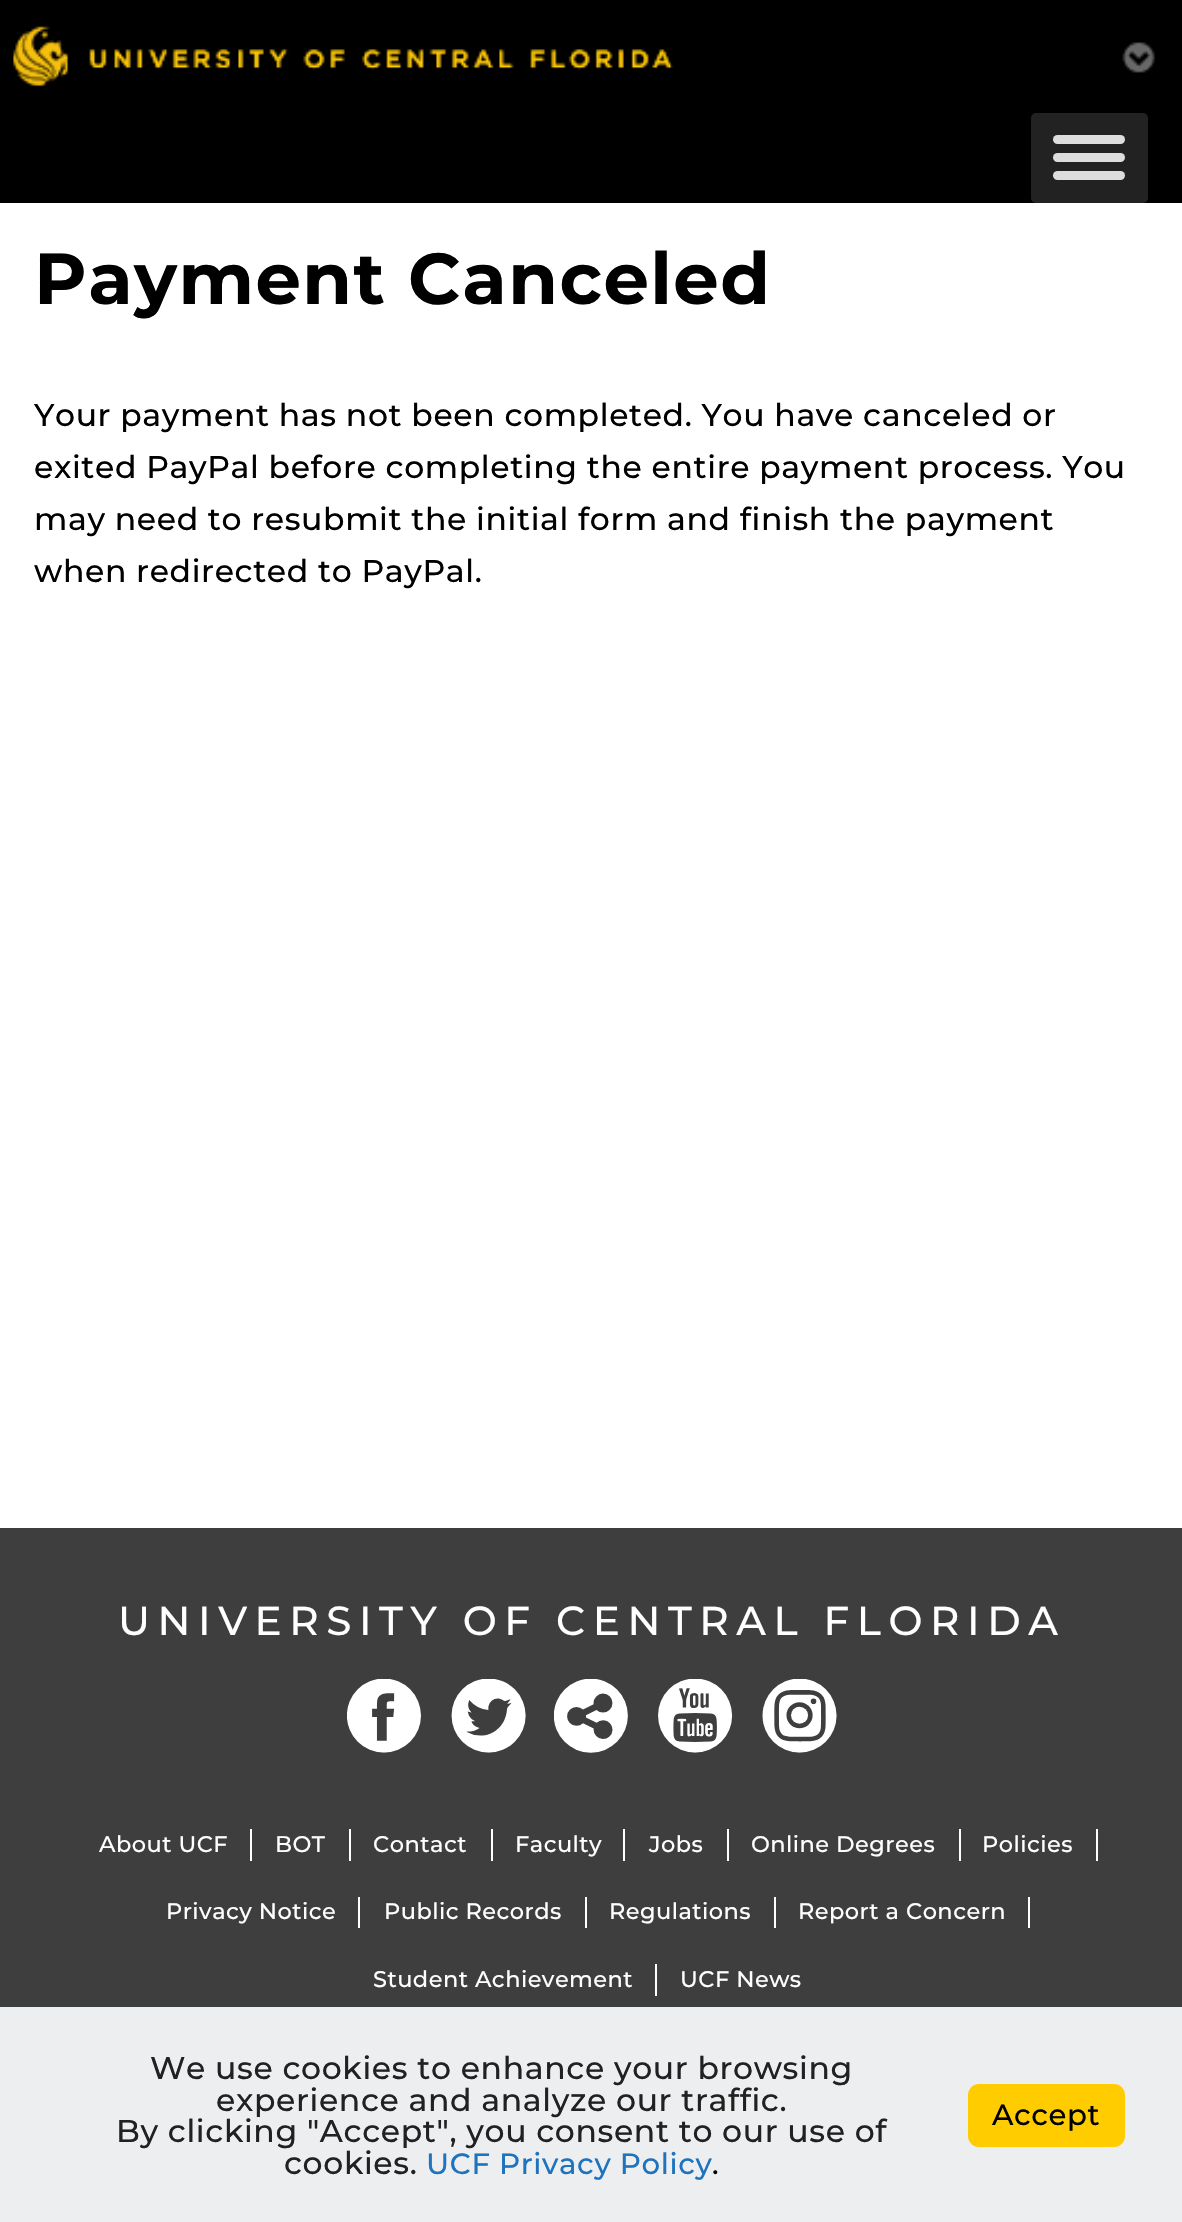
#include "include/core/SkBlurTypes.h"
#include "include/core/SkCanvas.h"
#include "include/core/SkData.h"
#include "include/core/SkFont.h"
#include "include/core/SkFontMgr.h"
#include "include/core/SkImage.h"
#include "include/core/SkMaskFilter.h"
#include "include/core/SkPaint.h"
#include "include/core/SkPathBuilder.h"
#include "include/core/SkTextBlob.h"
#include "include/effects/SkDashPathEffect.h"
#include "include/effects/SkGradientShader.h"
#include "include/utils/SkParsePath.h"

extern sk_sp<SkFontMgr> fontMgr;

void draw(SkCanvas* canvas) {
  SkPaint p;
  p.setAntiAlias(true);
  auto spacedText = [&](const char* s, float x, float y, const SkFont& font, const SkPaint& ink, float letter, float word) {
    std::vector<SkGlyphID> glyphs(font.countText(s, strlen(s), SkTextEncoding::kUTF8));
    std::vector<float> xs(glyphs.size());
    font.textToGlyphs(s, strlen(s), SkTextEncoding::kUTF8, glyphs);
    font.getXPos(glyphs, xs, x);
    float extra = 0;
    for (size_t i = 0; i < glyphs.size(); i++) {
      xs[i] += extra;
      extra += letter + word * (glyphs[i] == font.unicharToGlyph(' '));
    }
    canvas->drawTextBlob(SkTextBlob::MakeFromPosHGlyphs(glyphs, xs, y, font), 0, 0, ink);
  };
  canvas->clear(SK_ColorWHITE);
  p.setColor(SK_ColorBLACK);
  canvas->drawRect(SkRect::MakeLTRB(0, 0, 1182, 203), p);
  canvas->drawImageRect(SkImages::DeferredFromEncodedData(SkData::MakeFromFileName("images/1.png")), SkRect::MakeLTRB(13, 26, 674, 87), SkSamplingOptions());
  canvas->drawImageRect(SkImages::DeferredFromEncodedData(SkData::MakeFromFileName("images/2.png")), SkRect::MakeLTRB(1122, 42, 1155, 73), SkSamplingOptions());
  p.setColor(SkColorSetRGB(34, 34, 34));
  canvas->drawRoundRect(SkRect::MakeLTRB(1031, 113, 1148, 203), 5, 5, p);
  p.setColor(SkColorSetRGB(221, 221, 221));
  canvas->drawRoundRect(SkRect::MakeLTRB(1053, 135, 1125, 144), 4.5f, 4.5f, p);
  canvas->drawRoundRect(SkRect::MakeLTRB(1053, 153, 1125, 162), 4.5f, 4.5f, p);
  canvas->drawRoundRect(SkRect::MakeLTRB(1053, 171, 1125, 180), 4.5f, 4.5f, p);
  p.setColor(SkColorSetRGB(62, 62, 62));
  canvas->drawRect(SkRect::MakeLTRB(0, 1528, 1182, 2007), p);
  canvas->drawImageRect(SkImages::DeferredFromEncodedData(SkData::MakeFromFileName("images/3.png")), SkRect::MakeLTRB(347, 1679, 421, 1753), SkSamplingOptions());
  canvas->drawImageRect(SkImages::DeferredFromEncodedData(SkData::MakeFromFileName("images/4.png")), SkRect::MakeLTRB(451, 1679, 526, 1753), SkSamplingOptions());
  canvas->drawImageRect(SkImages::DeferredFromEncodedData(SkData::MakeFromFileName("images/5.png")), SkRect::MakeLTRB(554, 1679, 628, 1753), SkSamplingOptions());
  canvas->drawImageRect(SkImages::DeferredFromEncodedData(SkData::MakeFromFileName("images/6.png")), SkRect::MakeLTRB(658, 1679, 733, 1753), SkSamplingOptions());
  canvas->drawImageRect(SkImages::DeferredFromEncodedData(SkData::MakeFromFileName("images/7.png")), SkRect::MakeLTRB(762, 1679, 837, 1753), SkSamplingOptions());
  p.setColor(SK_ColorWHITE);
  canvas->drawRect(SkRect::MakeLTRB(250, 1829, 252, 1861), p);
  canvas->drawRect(SkRect::MakeLTRB(349, 1829, 351, 1861), p);
  canvas->drawRect(SkRect::MakeLTRB(491, 1829, 493, 1861), p);
  canvas->drawRect(SkRect::MakeLTRB(623, 1829, 625, 1861), p);
  canvas->drawRect(SkRect::MakeLTRB(727, 1829, 729, 1861), p);
  canvas->drawRect(SkRect::MakeLTRB(959, 1829, 961, 1861), p);
  canvas->drawRect(SkRect::MakeLTRB(1096, 1829, 1098, 1861), p);
  canvas->drawRect(SkRect::MakeLTRB(358, 1897, 360, 1928), p);
  canvas->drawRect(SkRect::MakeLTRB(585, 1897, 587, 1928), p);
  canvas->drawRect(SkRect::MakeLTRB(774, 1897, 776, 1928), p);
  canvas->drawRect(SkRect::MakeLTRB(1028, 1897, 1030, 1928), p);
  canvas->drawRect(SkRect::MakeLTRB(655, 1964, 657, 1996), p);
  p.setColor(SkColorSetRGB(236, 238, 239));
  canvas->drawRect(SkRect::MakeLTRB(0, 2007, 1182, 2222), p);
  p.setColor(SkColorSetRGB(255, 204, 0));
  canvas->drawRoundRect(SkRect::MakeLTRB(969, 2085, 1124, 2146), 10, 10, p);
  p.setStyle(SkPaint::kStroke_Style);
  p.setStrokeWidth(2);
  canvas->drawRoundRect(SkRect::MakeLTRB(969, 2085, 1124, 2146), 10, 10, p);
  SkFont font1(fontMgr->matchFamilyStyle("Montserrat", SkFontStyle::Bold()), 72);
  font1.setSubpixel(true);
  p.setStyle(SkPaint::kFill_Style);
  p.setColor(SK_ColorBLACK);
  canvas->drawString("Payment Canceled", 34, 304, font1, p);
  SkFont font2(fontMgr->matchFamilyStyle("Montserrat", SkFontStyle(500, SkFontStyle::kNormal_Width, SkFontStyle::kUpright_Slant)), 31.5f);
  font2.setSubpixel(true);
  canvas->drawString("Your payment has not been completed. You have canceled or", 34, 426, font2, p);
  canvas->drawString("exited PayPal before completing the entire payment process. You", 34, 478, font2, p);
  canvas->drawString("may need to resubmit the initial form and finish the payment", 34, 530, font2, p);
  canvas->drawString("when redirected to PayPal.", 34, 582, font2, p);
  SkFont font3(fontMgr->matchFamilyStyle("Montserrat", SkFontStyle(500, SkFontStyle::kNormal_Width, SkFontStyle::kUpright_Slant)), 40.5f);
  font3.setSubpixel(true);
  p.setColor(SK_ColorWHITE);
  spacedText("UNIVERSITY OF CENTRAL FLORIDA", 118, 1635, font3, p, 6.75f, 0);
  SkFont font4(fontMgr->matchFamilyStyle("Montserrat", SkFontStyle(500, SkFontStyle::kNormal_Width, SkFontStyle::kUpright_Slant)), 22.5f);
  font4.setSubpixel(true);
  canvas->drawString("About UCF", 99, 1852, font4, p);
  canvas->drawString("BOT", 275, 1852, font4, p);
  canvas->drawString("Contact", 373, 1852, font4, p);
  canvas->drawString("Faculty", 515, 1852, font4, p);
  canvas->drawString("Jobs", 649, 1852, font4, p);
  canvas->drawString("Online Degrees", 751, 1852, font4, p);
  canvas->drawString("Policies", 982, 1852, font4, p);
  canvas->drawString("Privacy Notice", 166, 1919, font4, p);
  canvas->drawString("Public Records", 384, 1919, font4, p);
  canvas->drawString("Regulations", 609, 1919, font4, p);
  canvas->drawString("Report a Concern", 798, 1919, font4, p);
  canvas->drawString("Student Achievement", 373, 1987, font4, p);
  canvas->drawString("UCF News", 680, 1987, font4, p);
  p.setColor(SkColorSetRGB(33, 33, 33));
  canvas->drawString("We use cookies to enhance your browsing", 150, 2079, font2, p);
  canvas->drawString("experience and analyze our traffic.", 216, 2111, font2, p);
  canvas->drawString("By clicking \"Accept\", you consent to our use of", 116, 2142, font2, p);
  canvas->drawString("cookies.", 284, 2174, font2, p);
  SkFont font5(fontMgr->matchFamilyStyle("Montserrat", SkFontStyle(500, SkFontStyle::kNormal_Width, SkFontStyle::kUpright_Slant)), 29.25f);
  font5.setSubpixel(true);
  p.setColor(SkColorSetRGB(30, 115, 190));
  canvas->drawString("UCF Privacy Policy", 426, 2174, font5, p);
  p.setColor(SK_ColorBLACK);
  canvas->drawString(".", 712, 2174, font5, p);
  canvas->drawString("Accept", 992, 2125, font5, p);
}
